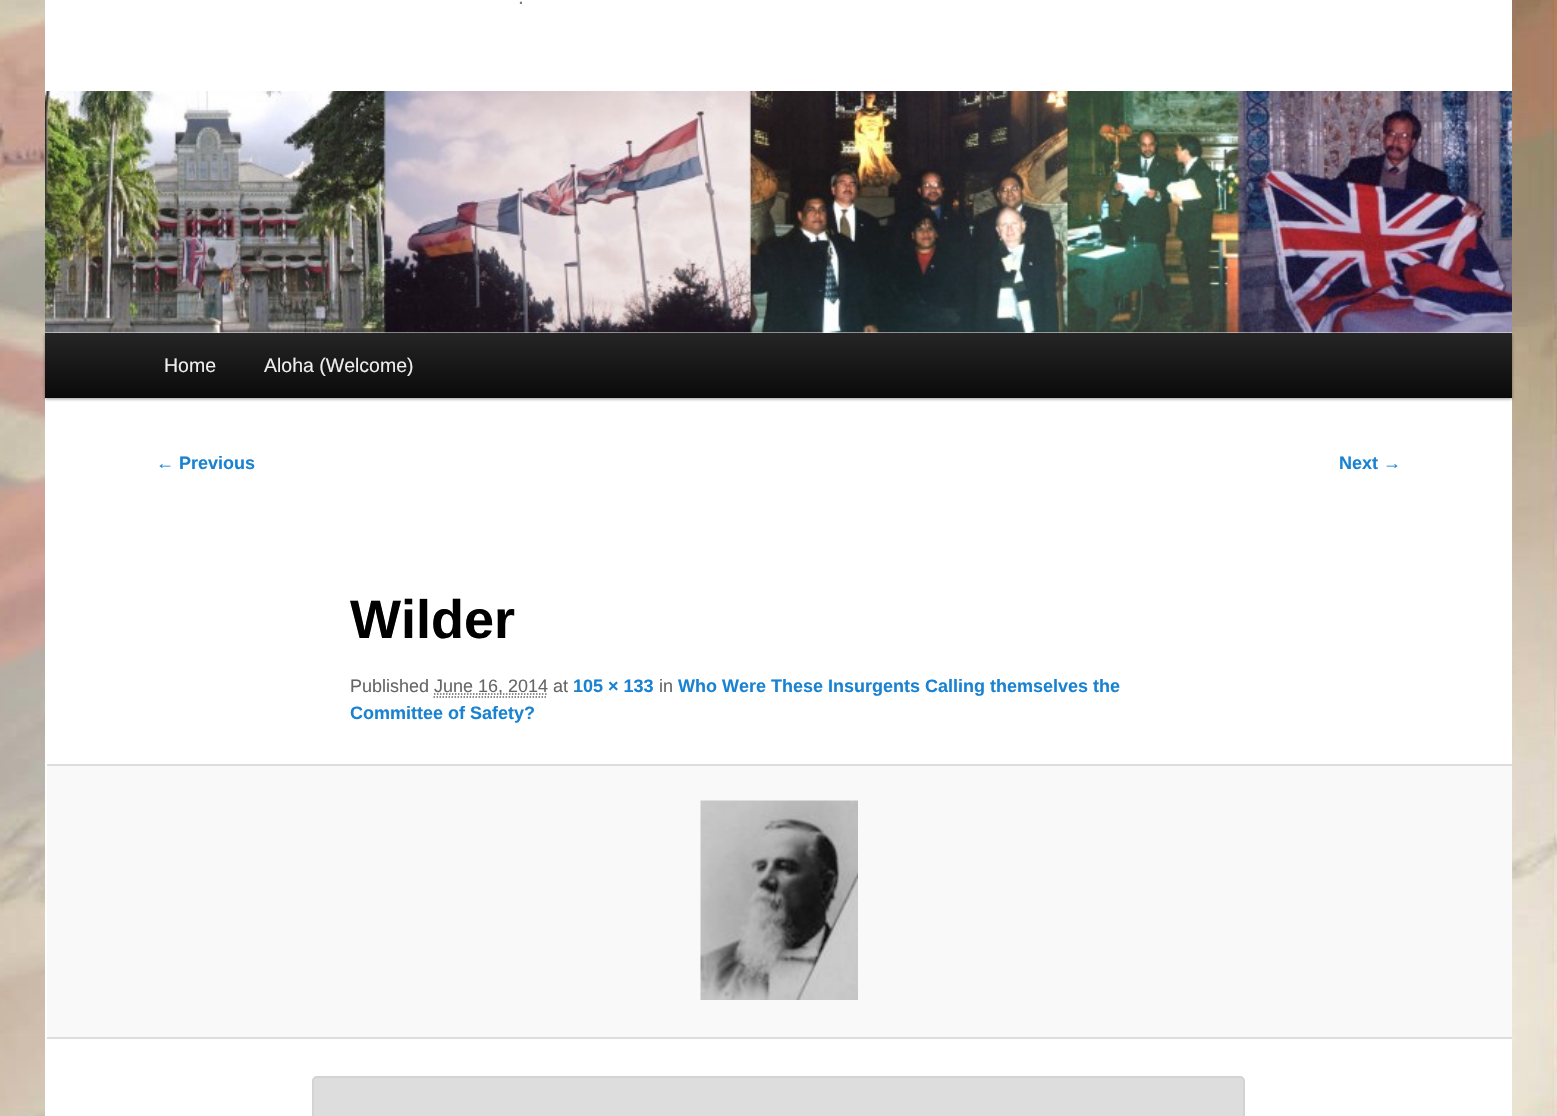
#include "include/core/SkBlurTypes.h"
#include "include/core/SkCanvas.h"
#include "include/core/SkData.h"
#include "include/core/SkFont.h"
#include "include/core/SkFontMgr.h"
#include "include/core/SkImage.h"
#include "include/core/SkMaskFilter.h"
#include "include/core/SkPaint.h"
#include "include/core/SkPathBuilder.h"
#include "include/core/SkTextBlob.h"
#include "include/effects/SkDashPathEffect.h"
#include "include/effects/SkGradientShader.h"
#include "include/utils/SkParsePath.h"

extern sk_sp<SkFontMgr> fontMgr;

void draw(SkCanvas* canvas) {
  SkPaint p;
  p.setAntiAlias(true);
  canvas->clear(SK_ColorWHITE);
  canvas->drawImageRect(SkImages::DeferredFromEncodedData(SkData::MakeFromFileName("images/1.png")), SkRect::MakeLTRB(0, 0, 1557, 1116), SkSamplingOptions());
  p.setColor(SK_ColorWHITE);
  canvas->drawRect(SkRect::MakeLTRB(45, 0, 1512, 1116), p);
  p.setColor(SkColorSetARGB(102, 0, 0, 0));
  p.setMaskFilter(SkMaskFilter::MakeBlur(kNormal_SkBlurStyle, 1.5f));
  canvas->drawRect(SkRect::MakeLTRB(45, 335, 1512, 399), p);
  p.setMaskFilter(nullptr);
  canvas->drawImageRect(SkImages::DeferredFromEncodedData(SkData::MakeFromFileName("images/2.png")), SkRect::MakeLTRB(45, 91, 1512, 333), SkSamplingOptions());
  {
    const SkColor colors[] = {SkColorSetRGB(37, 37, 37), SkColorSetRGB(10, 10, 10)};
    const float stops[] = {0, 1};
    const SkPoint ends[] = {{779, 333}, {779, 398}};
    p.setShader(SkGradientShader::MakeLinear(ends, colors, stops, 2, SkTileMode::kClamp));
    p.setAlpha(255);
  }
  canvas->drawRect(SkRect::MakeLTRB(45, 333, 1512, 398), p);
  p.setStyle(SkPaint::kStroke_Style);
  p.setStrokeWidth(1.5f);
  p.setShader(nullptr);
  p.setColor(SkColorSetRGB(102, 102, 102));
  p.setPathEffect(SkDashPathEffect::Make({{1.5f, 1.5f}}, 0));
  canvas->drawPath(SkPathBuilder().moveTo(433.5f, 697).lineTo(547.5f, 697).detach(), p);
  p.setPathEffect(nullptr);
  p.setPathEffect(SkDashPathEffect::Make({{1.5f, 1.5f}}, 0));
  canvas->drawPath(SkPathBuilder().moveTo(434, 694).lineTo(548, 694).detach(), p);
  p.setPathEffect(nullptr);
  p.setStyle(SkPaint::kFill_Style);
  p.setColor(SkColorSetRGB(249, 249, 249));
  canvas->drawRect(SkRect::MakeLTRB(47, 766, 1512, 1037), p);
  p.setColor(SkColorSetRGB(221, 221, 221));
  canvas->drawRect(SkRect::MakeLTRB(47, 764, 1512, 766), p);
  canvas->drawRect(SkRect::MakeLTRB(47, 1037, 1512, 1039), p);
  canvas->drawImageRect(SkImages::DeferredFromEncodedData(SkData::MakeFromFileName("images/3.png")), SkRect::MakeLTRB(700, 800, 858, 1000), SkSamplingOptions());
  canvas->drawRoundRect(SkRect::MakeLTRB(313, 1077, 1244, 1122), 4, 4, p);
  p.setStyle(SkPaint::kStroke_Style);
  p.setStrokeWidth(2);
  p.setColor(SkColorSetRGB(211, 211, 211));
  canvas->drawRoundRect(SkRect::MakeLTRB(313, 1077, 1244, 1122), 4, 4, p);
  SkFont font1(fontMgr->matchFamilyStyle("Liberation Sans", SkFontStyle::Normal()), 21);
  font1.setSubpixel(true);
  p.setStyle(SkPaint::kFill_Style);
  p.setColor(SkColorSetRGB(122, 122, 122));
  canvas->drawString(".", 518, 4, font1, p);
  SkFont font2(fontMgr->matchFamilyStyle("Liberation Sans", SkFontStyle::Normal()), 19.5f);
  font2.setSubpixel(true);
  p.setColor(SkColorSetRGB(238, 238, 238));
  canvas->drawString("Home", 164, 372, font2, p);
  canvas->drawString("Aloha (Welcome)", 264, 372, font2, p);
  SkFont font3(fontMgr->matchFamilyStyle("Liberation Sans", SkFontStyle::Bold()), 18);
  font3.setSubpixel(true);
  p.setColor(SkColorSetRGB(25, 130, 209));
  canvas->drawString("← Previous", 156, 469, font3, p);
  canvas->drawString("Next →", 1339, 469, font3, p);
  SkFont font4(fontMgr->matchFamilyStyle("Liberation Sans", SkFontStyle::Bold()), 54);
  font4.setSubpixel(true);
  p.setColor(SK_ColorBLACK);
  canvas->drawString("Wilder", 350, 638, font4, p);
  SkFont font5(fontMgr->matchFamilyStyle("Liberation Sans", SkFontStyle::Normal()), 18);
  font5.setSubpixel(true);
  p.setColor(SkColorSetRGB(102, 102, 102));
  canvas->drawString("Published", 350, 692, font5, p);
  canvas->drawString("June 16, 2014 at", 434, 692, font5, p);
  p.setColor(SkColorSetRGB(25, 130, 209));
  canvas->drawString("105 × 133", 573, 692, font3, p);
  p.setColor(SkColorSetRGB(102, 102, 102));
  canvas->drawString("in", 659, 692, font5, p);
  p.setColor(SkColorSetRGB(25, 130, 209));
  canvas->drawString("Who Were These Insurgents Calling themselves the", 678, 692, font3, p);
  canvas->drawString("Committee of Safety?", 350, 719, font3, p);
}
